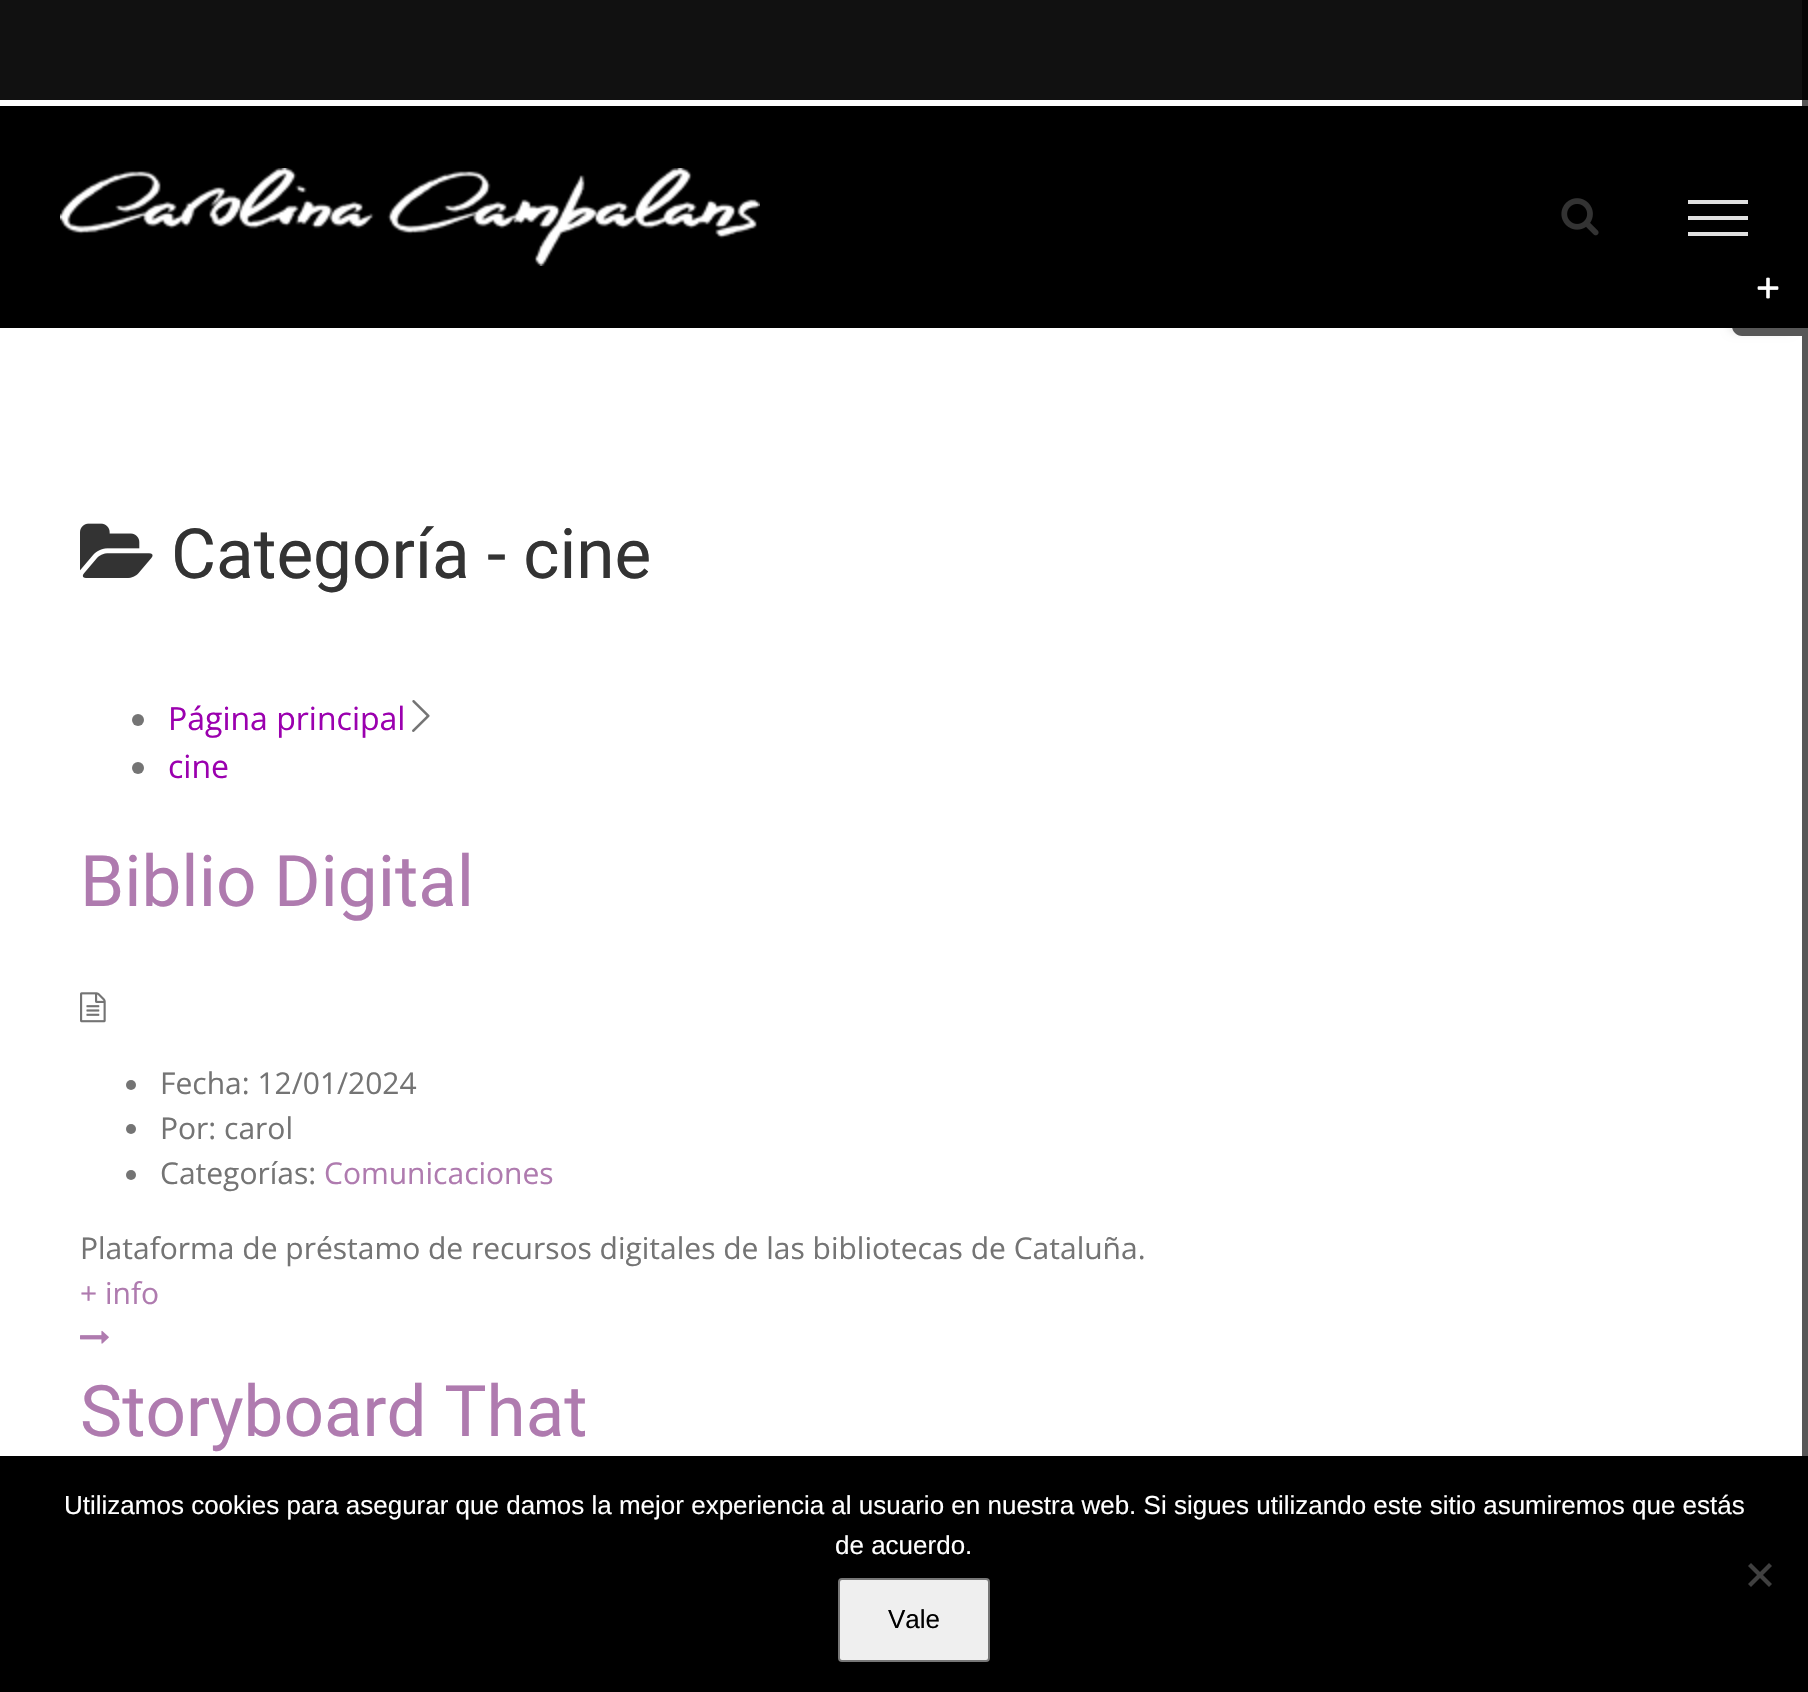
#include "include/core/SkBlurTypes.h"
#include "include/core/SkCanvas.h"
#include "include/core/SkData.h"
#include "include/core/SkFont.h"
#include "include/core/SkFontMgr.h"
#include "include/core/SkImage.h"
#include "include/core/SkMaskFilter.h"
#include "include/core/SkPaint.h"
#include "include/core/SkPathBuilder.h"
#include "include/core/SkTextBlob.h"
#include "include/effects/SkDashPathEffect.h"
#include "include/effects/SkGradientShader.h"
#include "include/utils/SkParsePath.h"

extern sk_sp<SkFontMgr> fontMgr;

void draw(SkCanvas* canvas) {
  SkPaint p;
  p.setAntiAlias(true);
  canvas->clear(SK_ColorWHITE);
  p.setColor(SK_ColorBLACK);
  canvas->drawRect(SkRect::MakeLTRB(0, 106, 1808, 328), p);
  p.setColor(SkColorSetRGB(224, 224, 224));
  canvas->drawRect(SkRect::MakeLTRB(1688, 232, 1748, 236), p);
  canvas->save();
  canvas->clipPath(SkPathBuilder(SkPathFillType::kEvenOdd).moveTo(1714, 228).lineTo(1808, 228).lineTo(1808, 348).lineTo(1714, 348).close().moveTo(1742, 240).lineTo(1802, 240).lineTo(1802, 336).lineTo(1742, 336).cubicTo(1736.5f, 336, 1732, 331.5f, 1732, 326).lineTo(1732, 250).cubicTo(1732, 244.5f, 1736.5f, 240, 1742, 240).close().detach(), true);
  p.setColor(SkColorSetARGB(36, 0, 0, 0));
  p.setMaskFilter(SkMaskFilter::MakeBlur(kNormal_SkBlurStyle, 5));
  canvas->drawRoundRect(SkRect::MakeLTRB(1730, 244, 1792, 332), 6, 6, p);
  p.setMaskFilter(nullptr);
  canvas->restore();
  p.setColor(SkColorSetRGB(17, 17, 17));
  canvas->drawRect(SkRect::MakeLTRB(0, 0, 1808, 100), p);
  p.setColor(SkColorSetARGB(168, 0, 0, 0));
  canvas->drawRect(SkRect::MakeLTRB(1802, 0, 1808, 1456), p);
  canvas->drawPath(SkPathBuilder().moveTo(1742, 240).lineTo(1802, 240).lineTo(1802, 336).lineTo(1742, 336).cubicTo(1736.5f, 336, 1732, 331.5f, 1732, 326).lineTo(1732, 250).cubicTo(1732, 244.5f, 1736.5f, 240, 1742, 240).close().detach(), p);
  canvas->drawImageRect(SkImages::DeferredFromEncodedData(SkData::MakeFromFileName("images/1.png")), SkRect::MakeLTRB(1757, 277, 1779, 299), SkSamplingOptions());
  canvas->drawImageRect(SkImages::DeferredFromEncodedData(SkData::MakeFromFileName("images/2.png")), SkRect::MakeLTRB(60, 168, 760, 266), SkSamplingOptions());
  canvas->drawImageRect(SkImages::DeferredFromEncodedData(SkData::MakeFromFileName("images/3.png")), SkRect::MakeLTRB(1561, 198, 1599, 236), SkSamplingOptions());
  p.setColor(SkColorSetRGB(224, 224, 224));
  canvas->drawRect(SkRect::MakeLTRB(1688, 200, 1748, 204), p);
  canvas->drawRect(SkRect::MakeLTRB(1688, 216, 1748, 220), p);
  canvas->drawImageRect(SkImages::DeferredFromEncodedData(SkData::MakeFromFileName("images/4.png")), SkRect::MakeLTRB(80, 523, 153, 578), SkSamplingOptions());
  p.setColor(SkColorSetRGB(116, 116, 116));
  canvas->drawCircle(138, 720, 6, p);
  canvas->drawImageRect(SkImages::DeferredFromEncodedData(SkData::MakeFromFileName("images/5.png")), SkRect::MakeLTRB(412, 700, 430, 732), SkSamplingOptions());
  canvas->drawCircle(138, 768, 6, p);
  canvas->drawImageRect(SkImages::DeferredFromEncodedData(SkData::MakeFromFileName("images/6.png")), SkRect::MakeLTRB(80, 992, 106, 1023), SkSamplingOptions());
  canvas->drawCircle(131, 1085, 5, p);
  canvas->drawCircle(131, 1129, 5, p);
  canvas->drawCircle(131, 1175, 5, p);
  canvas->drawImageRect(SkImages::DeferredFromEncodedData(SkData::MakeFromFileName("images/7.png")), SkRect::MakeLTRB(80, 1330, 109, 1344), SkSamplingOptions());
  p.setColor(SK_ColorBLACK);
  canvas->drawRect(SkRect::MakeLTRB(0, 1456, 1808, 1692), p);
  p.setColor(SkColorSetRGB(64, 64, 64));
  canvas->drawPath(SkPathBuilder().moveTo(1769, 1563).lineTo(1772, 1566).lineTo(1751, 1587).lineTo(1748, 1584).close().detach(), p);
  canvas->drawPath(SkPathBuilder().moveTo(1748, 1566).lineTo(1751, 1563).lineTo(1772, 1584).lineTo(1769, 1587).close().detach(), p);
  p.setColor(SkColorSetRGB(239, 239, 239));
  canvas->drawRoundRect(SkRect::MakeLTRB(839, 1579, 989, 1661), 3, 3, p);
  p.setStyle(SkPaint::kStroke_Style);
  p.setStrokeWidth(2);
  p.setColor(SkColorSetRGB(118, 118, 118));
  canvas->drawRoundRect(SkRect::MakeLTRB(839, 1579, 989, 1661), 3, 3, p);
  SkFont font1(fontMgr->matchFamilyStyle("Roboto", SkFontStyle::Normal()), 69.25f);
  font1.setSubpixel(true);
  p.setStyle(SkPaint::kFill_Style);
  p.setColor(SkColorSetRGB(51, 51, 51));
  canvas->drawString("Categoría - cine", 171, 578, font1, p);
  SkFont font2(fontMgr->matchFamilyStyle("Open Sans", SkFontStyle::Normal()), 32);
  font2.setSubpixel(true);
  p.setColor(SkColorSetRGB(155, 0, 175));
  canvas->drawString("Página principal", 168, 730, font2, p);
  canvas->drawString("cine", 168, 778, font2, p);
  SkFont font3(fontMgr->matchFamilyStyle("Roboto", SkFontStyle::Normal()), 71);
  font3.setSubpixel(true);
  p.setColor(SkColorSetRGB(175, 123, 175));
  canvas->drawString("Biblio Digital", 80, 906, font3, p);
  SkFont font4(fontMgr->matchFamilyStyle("Open Sans", SkFontStyle::Normal()), 30);
  font4.setSubpixel(true);
  p.setColor(SkColorSetRGB(116, 116, 116));
  canvas->drawString("Fecha: 12/01/2024", 160, 1094, font4, p);
  canvas->drawString("Por: carol", 160, 1139, font4, p);
  canvas->drawString("Categorías:", 160, 1184, font4, p);
  p.setColor(SkColorSetRGB(175, 123, 175));
  canvas->drawString("Comunicaciones", 324, 1184, font4, p);
  p.setColor(SkColorSetRGB(116, 116, 116));
  canvas->drawString("Plataforma de préstamo de recursos digitales de las bibliotecas de Cataluña.", 80, 1259, font4, p);
  p.setColor(SkColorSetRGB(175, 123, 175));
  canvas->drawString("+ info", 80, 1304, font4, p);
  canvas->drawString("Storyboard That", 80, 1436, font3, p);
  SkFont font5(fontMgr->matchFamilyStyle("Liberation Sans", SkFontStyle::Normal()), 26);
  font5.setSubpixel(true);
  p.setColor(SK_ColorWHITE);
  canvas->drawString("Utilizamos cookies para asegurar que damos la mejor experiencia al usuario en nuestra web. Si sigues utilizando este sitio asumiremos que estás", 64, 1514, font5, p);
  canvas->drawString("de acuerdo.", 835, 1554, font5, p);
  p.setColor(SK_ColorBLACK);
  canvas->drawString("Vale", 888, 1628, font5, p);
}
